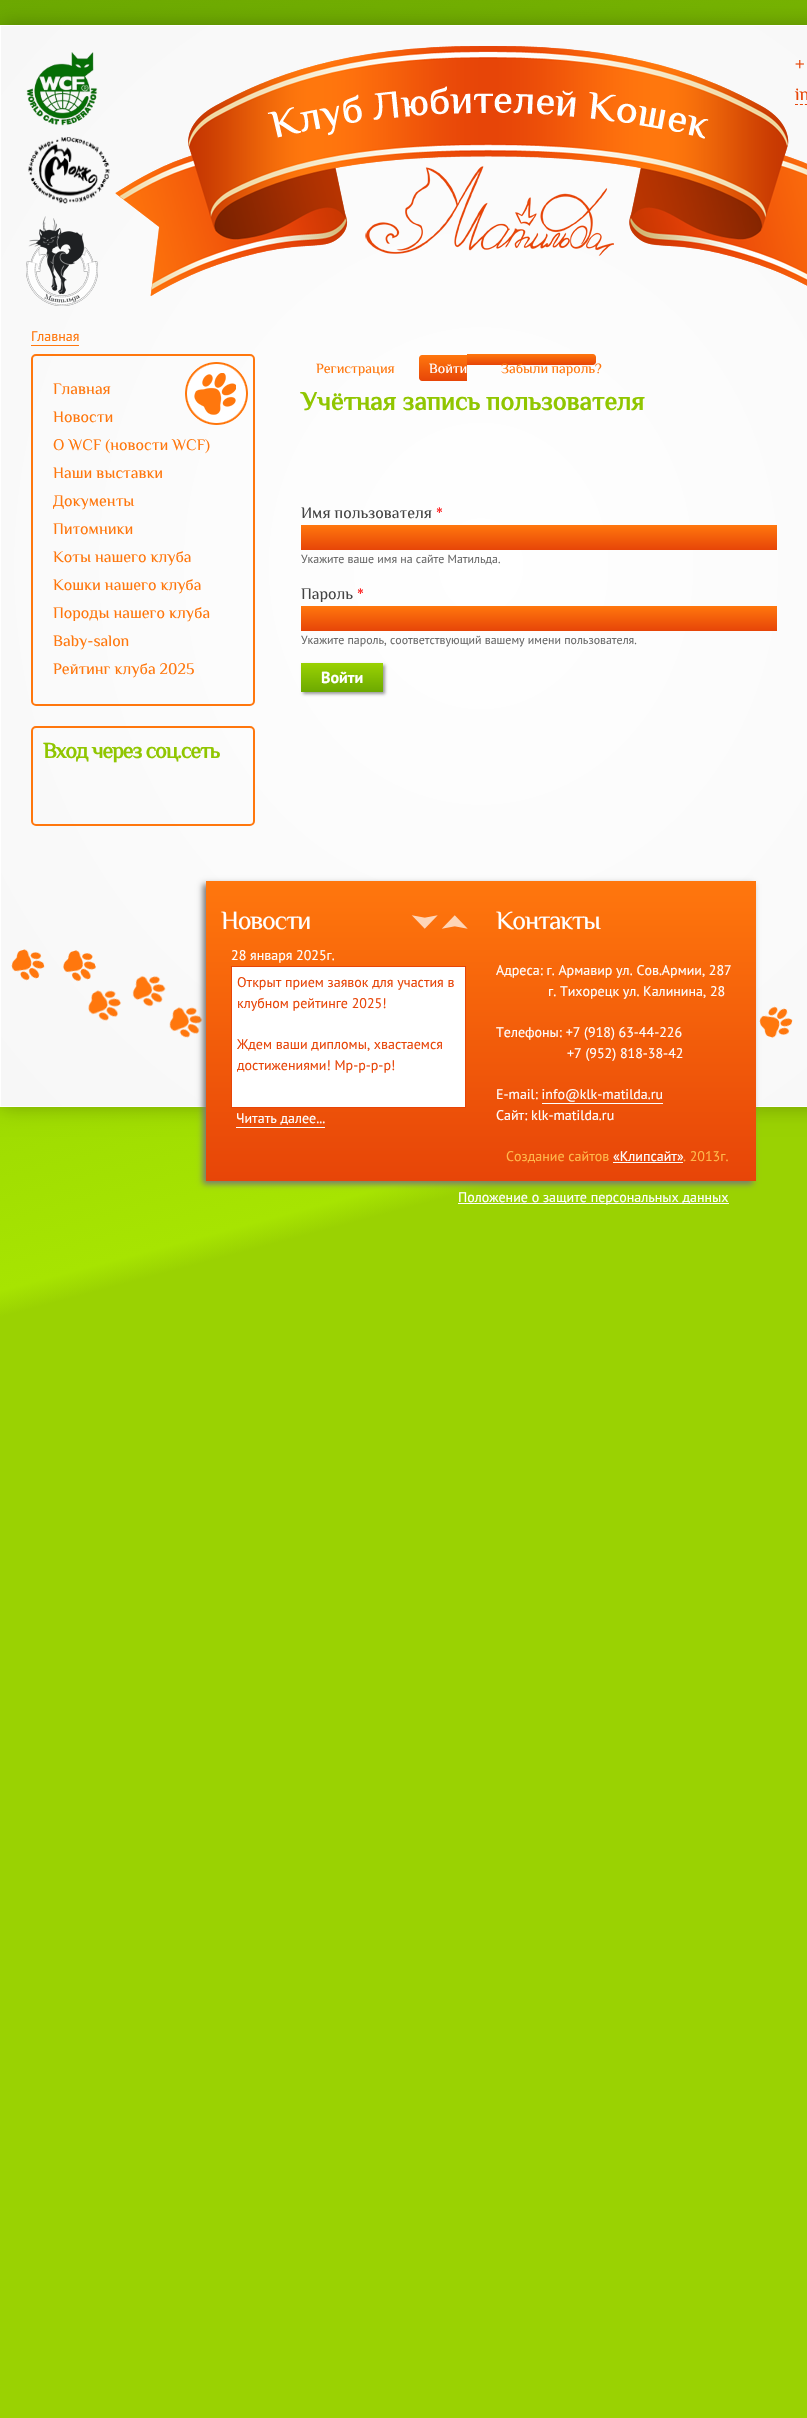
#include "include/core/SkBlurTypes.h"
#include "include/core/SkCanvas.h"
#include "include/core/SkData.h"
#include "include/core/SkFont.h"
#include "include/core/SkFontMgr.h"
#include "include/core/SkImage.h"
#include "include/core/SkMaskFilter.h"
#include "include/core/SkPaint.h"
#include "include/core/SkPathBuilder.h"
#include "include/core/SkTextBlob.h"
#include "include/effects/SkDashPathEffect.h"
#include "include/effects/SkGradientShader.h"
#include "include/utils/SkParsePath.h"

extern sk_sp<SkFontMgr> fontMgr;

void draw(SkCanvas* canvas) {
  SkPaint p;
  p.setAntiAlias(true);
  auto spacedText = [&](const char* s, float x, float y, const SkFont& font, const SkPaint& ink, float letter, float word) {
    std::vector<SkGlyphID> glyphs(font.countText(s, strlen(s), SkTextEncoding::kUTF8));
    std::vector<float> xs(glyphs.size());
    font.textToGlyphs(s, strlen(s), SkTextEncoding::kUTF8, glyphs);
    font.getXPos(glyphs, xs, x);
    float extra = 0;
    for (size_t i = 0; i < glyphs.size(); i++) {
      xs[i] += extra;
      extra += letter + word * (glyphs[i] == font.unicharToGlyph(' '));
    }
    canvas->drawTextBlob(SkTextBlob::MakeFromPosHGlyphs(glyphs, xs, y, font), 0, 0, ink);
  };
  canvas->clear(SK_ColorWHITE);
  canvas->drawImageRect(SkImages::DeferredFromEncodedData(SkData::MakeFromFileName("images/1.png")), SkRect::MakeLTRB(0, 0, 807, 2418), SkSamplingOptions());
  p.setColor(SkColorSetARGB(66, 0, 0, 0));
  p.setMaskFilter(SkMaskFilter::MakeBlur(kNormal_SkBlurStyle, 10));
  canvas->drawRect(SkRect::MakeLTRB(0, 25, 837, 1107), p);
  p.setMaskFilter(nullptr);
  {
    const SkColor colors[] = {SK_ColorWHITE, SkColorSetRGB(247, 247, 247)};
    const float stops[] = {0, 1};
    SkMatrix m = SkMatrix::Translate(481, 566).preScale(679, 764);
    p.setShader(SkGradientShader::MakeRadial({0, 0}, 1, colors, stops, 2, SkTileMode::kClamp, 0, &m));
    p.setAlpha(255);
  }
  canvas->drawRect(SkRect::MakeLTRB(1, 26, 807, 1106), p);
  p.setStyle(SkPaint::kStroke_Style);
  p.setStrokeWidth(1);
  p.setShader(nullptr);
  p.setColor(SK_ColorWHITE);
  canvas->drawRect(SkRect::MakeLTRB(0.5f, 25.5f, 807.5f, 1106.5f), p);
  canvas->drawImageRect(SkImages::DeferredFromEncodedData(SkData::MakeFromFileName("images/2.png")), SkRect::MakeLTRB(26, 52, 98, 126), SkSamplingOptions());
  canvas->drawImageRect(SkImages::DeferredFromEncodedData(SkData::MakeFromFileName("images/6.png")), SkRect::MakeLTRB(365, 166, 614, 256), SkSamplingOptions());
  canvas->drawImageRect(SkImages::DeferredFromEncodedData(SkData::MakeFromFileName("images/3.png")), SkRect::MakeLTRB(115, 46, 807, 296), SkSamplingOptions());
  canvas->drawImageRect(SkImages::DeferredFromEncodedData(SkData::MakeFromFileName("images/4.png")), SkRect::MakeLTRB(115, 46, 807, 296), SkSamplingOptions());
  p.setColor(SkColorSetRGB(231, 69, 8));
  p.setPathEffect(SkDashPathEffect::Make({{3, 1.93f}}, 0));
  canvas->drawPath(SkPathBuilder().moveTo(795, 104.5f).lineTo(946, 104.5f).detach(), p);
  p.setPathEffect(nullptr);
  canvas->drawImageRect(SkImages::DeferredFromEncodedData(SkData::MakeFromFileName("images/5.png")), SkRect::MakeLTRB(28, 137, 110, 204), SkSamplingOptions());
  canvas->drawImageRect(SkImages::DeferredFromEncodedData(SkData::MakeFromFileName("images/7.png")), SkRect::MakeLTRB(26, 216, 98, 306), SkSamplingOptions());
  p.setStyle(SkPaint::kFill_Style);
  p.setColor(SkColorSetRGB(255, 119, 13));
  canvas->drawRect(SkRect::MakeLTRB(31, 345, 79, 346), p);
  p.setStyle(SkPaint::kStroke_Style);
  p.setStrokeWidth(2);
  canvas->drawRoundRect(SkRect::MakeLTRB(32, 355, 254, 705), 4, 4, p);
  canvas->drawImageRect(SkImages::DeferredFromEncodedData(SkData::MakeFromFileName("images/8.png")), SkRect::MakeLTRB(185, 362, 248, 425), SkSamplingOptions());
  canvas->drawRoundRect(SkRect::MakeLTRB(32, 727, 254, 825), 4, 4, p);
  p.setStyle(SkPaint::kFill_Style);
  {
    const SkColor colors[] = {SkColorSetRGB(255, 119, 13), SkColorSetRGB(231, 69, 8)};
    const float stops[] = {0, 1};
    const SkPoint ends[] = {{443, 355}, {443, 381}};
    p.setShader(SkGradientShader::MakeLinear(ends, colors, stops, 2, SkTileMode::kClamp));
    p.setAlpha(255);
  }
  canvas->drawPath(SkPathBuilder().moveTo(422, 355).lineTo(467, 355).lineTo(467, 381).lineTo(422, 381).cubicTo(420.5f, 381, 419, 379.5f, 419, 378).lineTo(419, 358).cubicTo(419, 356.5f, 420.5f, 355, 422, 355).close().detach(), p);
  {
    const SkColor colors[] = {SkColorSetRGB(255, 119, 13), SkColorSetRGB(231, 69, 8)};
    const float stops[] = {0, 1};
    const SkPoint ends[] = {{532, 354}, {532, 365}};
    p.setShader(SkGradientShader::MakeLinear(ends, colors, stops, 2, SkTileMode::kClamp));
    p.setAlpha(255);
  }
  canvas->drawPath(SkPathBuilder().moveTo(467, 354).lineTo(593, 354).cubicTo(594.5f, 354, 596, 355.5f, 596, 357).lineTo(596, 362).cubicTo(596, 363.5f, 594.5f, 365, 593, 365).lineTo(467, 365).close().detach(), p);
  {
    const SkColor colors[] = {SkColorSetRGB(255, 119, 13), SkColorSetRGB(231, 69, 8)};
    const float stops[] = {0, 1};
    const SkPoint ends[] = {{539, 525}, {539, 550}};
    p.setShader(SkGradientShader::MakeLinear(ends, colors, stops, 2, SkTileMode::kClamp));
    p.setAlpha(255);
  }
  canvas->drawRect(SkRect::MakeLTRB(301, 525, 777, 550), p);
  {
    const SkColor colors[] = {SkColorSetRGB(255, 119, 13), SkColorSetRGB(231, 69, 8)};
    const float stops[] = {0, 1};
    const SkPoint ends[] = {{539, 606}, {539, 631}};
    p.setShader(SkGradientShader::MakeLinear(ends, colors, stops, 2, SkTileMode::kClamp));
    p.setAlpha(255);
  }
  canvas->drawRect(SkRect::MakeLTRB(301, 606, 777, 631), p);
  p.setShader(nullptr);
  p.setColor(SkColorSetRGB(153, 153, 153));
  p.setMaskFilter(SkMaskFilter::MakeBlur(kNormal_SkBlurStyle, 1.5f));
  canvas->drawRect(SkRect::MakeLTRB(303, 665, 385, 694), p);
  p.setMaskFilter(nullptr);
  {
    const SkColor colors[] = {SkColorSetRGB(154, 210, 2), SkColorSetRGB(108, 169, 1)};
    const float stops[] = {0, 1};
    const SkPoint ends[] = {{342, 663}, {342, 692}};
    p.setShader(SkGradientShader::MakeLinear(ends, colors, stops, 2, SkTileMode::kClamp));
    p.setAlpha(255);
  }
  canvas->drawRect(SkRect::MakeLTRB(301, 663, 383, 692), p);
  canvas->drawImageRect(SkImages::DeferredFromEncodedData(SkData::MakeFromFileName("images/9.png")), SkRect::MakeLTRB(11, 949, 793, 1038), SkSamplingOptions());
  p.setShader(nullptr);
  p.setColor(SkColorSetRGB(119, 119, 119));
  p.setMaskFilter(SkMaskFilter::MakeBlur(kNormal_SkBlurStyle, 3));
  canvas->drawRect(SkRect::MakeLTRB(203, 884, 753, 1184), p);
  p.setMaskFilter(nullptr);
  {
    const SkColor colors[] = {SkColorSetRGB(255, 119, 13), SkColorSetRGB(231, 69, 8)};
    const float stops[] = {0, 1};
    const SkPoint ends[] = {{481, 881}, {481, 1181}};
    p.setShader(SkGradientShader::MakeLinear(ends, colors, stops, 2, SkTileMode::kClamp));
    p.setAlpha(255);
  }
  canvas->drawRect(SkRect::MakeLTRB(206, 881, 756, 1181), p);
  canvas->drawImageRect(SkImages::DeferredFromEncodedData(SkData::MakeFromFileName("images/10.png")), SkRect::MakeLTRB(411, 915, 438, 929), SkSamplingOptions());
  canvas->drawImageRect(SkImages::DeferredFromEncodedData(SkData::MakeFromFileName("images/11.png")), SkRect::MakeLTRB(441, 915, 468, 929), SkSamplingOptions());
  p.setShader(nullptr);
  p.setColor(SK_ColorWHITE);
  canvas->drawRect(SkRect::MakeLTRB(231.5f, 966.5f, 465.5f, 1107.5f), p);
  p.setStyle(SkPaint::kStroke_Style);
  p.setStrokeWidth(1);
  p.setColor(SkColorSetRGB(231, 69, 8));
  canvas->drawRect(SkRect::MakeLTRB(231.5f, 966.5f, 465.5f, 1107.5f), p);
  p.setStyle(SkPaint::kFill_Style);
  p.setColor(SK_ColorWHITE);
  canvas->drawRect(SkRect::MakeLTRB(236, 1127, 325, 1128), p);
  canvas->drawRect(SkRect::MakeLTRB(542, 1103, 663, 1104), p);
  canvas->drawRect(SkRect::MakeLTRB(613, 1162, 683, 1163), p);
  canvas->drawRect(SkRect::MakeLTRB(458, 1203, 729, 1204), p);
  SkFont font1(fontMgr->matchFamilyStyle("Philosopher", SkFontStyle::Normal()), 18);
  font1.setSubpixel(true);
  p.setColor(SkColorSetRGB(231, 69, 8));
  canvas->drawString("+", 795, 70, font1, p);
  canvas->drawString("in", 795, 100, font1, p);
  SkFont font2(fontMgr->matchFamilyStyle("PT Sans", SkFontStyle::Normal()), 14);
  font2.setSubpixel(true);
  p.setColor(SkColorSetRGB(255, 119, 13));
  canvas->drawString("Главная", 31, 341, font2, p);
  SkFont font3(fontMgr->matchFamilyStyle("Philosopher", SkFontStyle::Normal()), 16);
  font3.setSubpixel(true);
  canvas->drawString("Главная", 53, 394, font3, p);
  canvas->drawString("Новости", 53, 422, font3, p);
  canvas->drawString("О WCF (новости WCF)", 53, 450, font3, p);
  canvas->drawString("Наши выставки", 53, 478, font3, p);
  canvas->drawString("Документы", 53, 506, font3, p);
  canvas->drawString("Питомники", 53, 534, font3, p);
  canvas->drawString("Коты нашего клуба", 53, 562, font3, p);
  canvas->drawString("Кошки нашего клуба", 53, 590, font3, p);
  canvas->drawString("Породы нашего клуба", 53, 618, font3, p);
  canvas->drawString("Baby-salon", 53, 646, font3, p);
  canvas->drawString("Рейтинг клуба 2025", 53, 674, font3, p);
  SkFont font4(fontMgr->matchFamilyStyle("Philosopher", SkFontStyle::Bold()), 22);
  font4.setSubpixel(true);
  p.setColor(SkColorSetRGB(144, 198, 0));
  spacedText("Вход через соц.сеть", 43, 758, font4, p, -1.1f, 0);
  SkFont font5(fontMgr->matchFamilyStyle("Philosopher", SkFontStyle::Normal()), 14);
  font5.setSubpixel(true);
  p.setColor(SkColorSetRGB(255, 119, 13));
  canvas->drawString("Регистрация", 316, 373, font5, p);
  p.setColor(SK_ColorWHITE);
  canvas->drawString("Войти", 429, 373, font5, p);
  p.setColor(SkColorSetRGB(255, 119, 13));
  canvas->drawString("Забыли пароль?", 501, 373, font5, p);
  SkFont font6(fontMgr->matchFamilyStyle("Philosopher", SkFontStyle::Bold()), 26);
  font6.setSubpixel(true);
  p.setColor(SkColorSetRGB(144, 198, 0));
  canvas->drawString("Учётная запись пользователя", 301, 410, font6, p);
  p.setColor(SkColorSetRGB(68, 68, 68));
  canvas->drawString("Имя пользователя", 301, 518, font3, p);
  p.setColor(SkColorSetRGB(255, 0, 0));
  canvas->drawString("*", 436, 518, font3, p);
  SkFont font7(fontMgr->matchFamilyStyle("PT Sans", SkFontStyle::Normal()), 11.9f);
  font7.setSubpixel(true);
  p.setColor(SkColorSetRGB(106, 106, 106));
  canvas->drawString("Укажите ваше имя на сайте Матильда.", 301, 563, font7, p);
  p.setColor(SkColorSetRGB(68, 68, 68));
  canvas->drawString("Пароль", 301, 599, font3, p);
  p.setColor(SkColorSetRGB(255, 0, 0));
  canvas->drawString("*", 357, 599, font3, p);
  p.setColor(SkColorSetRGB(106, 106, 106));
  canvas->drawString("Укажите пароль, соответствующий вашему имени пользователя.", 301, 644, font7, p);
  SkFont font8(fontMgr->matchFamilyStyle("PT Sans", SkFontStyle::Bold()), 16);
  font8.setSubpixel(true);
  p.setColor(SK_ColorWHITE);
  canvas->drawString("Войти", 321, 683, font8, p);
  SkFont font9(fontMgr->matchFamilyStyle("Philosopher", SkFontStyle::Normal()), 26);
  font9.setSubpixel(true);
  spacedText("Новости", 221, 929, font9, p, -1.25f, 0);
  canvas->drawString("28 января 2025г.", 231, 960, font2, p);
  p.setColor(SkColorSetRGB(231, 69, 8));
  canvas->drawString("Открыт прием заявок для участия в", 237, 987, font2, p);
  canvas->drawString("клубном рейтинге 2025!", 237, 1008, font2, p);
  canvas->drawString("Ждем ваши дипломы, хвастаемся", 237, 1049, font2, p);
  canvas->drawString("достижениями! Мр-р-р-р!", 237, 1070, font2, p);
  p.setColor(SK_ColorWHITE);
  canvas->drawString("Читать далее...", 236, 1123, font2, p);
  spacedText("Контакты", 496, 929, font9, p, -1.25f, 0);
  canvas->drawString("Адреса: г. Армавир ул. Сов.Армии, 287", 496, 975, font2, p);
  canvas->drawString("г. Тихорецк ул. Калинина, 28", 548, 996, font2, p);
  canvas->drawString("Телефоны: +7 (918) 63-44-226", 496, 1037, font2, p);
  canvas->drawString("+7 (952) 818-38-42", 567, 1058, font2, p);
  canvas->drawString("E-mail: info@klk-matilda.ru", 496, 1099, font2, p);
  canvas->drawString("Сайт: klk-matilda.ru", 496, 1120, font2, p);
  p.setColor(SkColorSetRGB(255, 184, 75));
  canvas->drawString("Создание сайтов", 506, 1161, font2, p);
  p.setColor(SK_ColorWHITE);
  canvas->drawString("«Клипсайт»", 613, 1161, font2, p);
  p.setColor(SkColorSetRGB(255, 184, 75));
  canvas->drawString(". 2013г.", 683, 1161, font2, p);
  p.setColor(SK_ColorWHITE);
  canvas->drawString("Положение о защите персональных данных", 458, 1202, font2, p);
}
